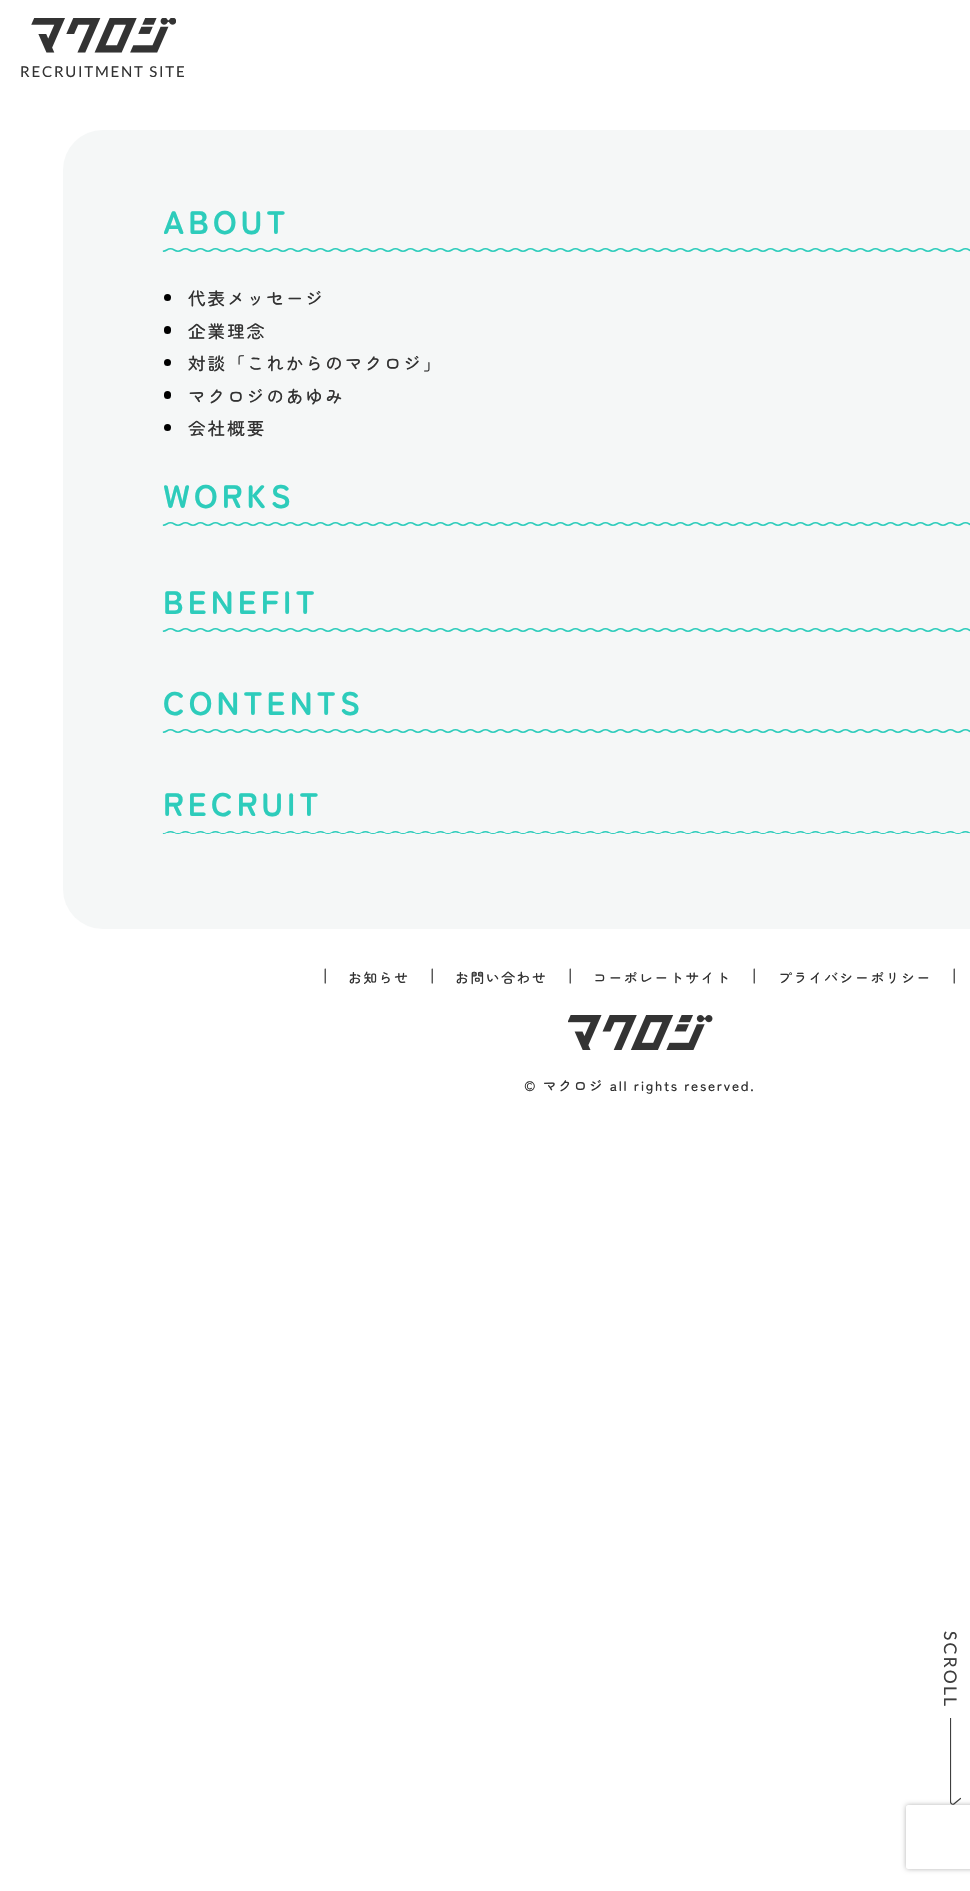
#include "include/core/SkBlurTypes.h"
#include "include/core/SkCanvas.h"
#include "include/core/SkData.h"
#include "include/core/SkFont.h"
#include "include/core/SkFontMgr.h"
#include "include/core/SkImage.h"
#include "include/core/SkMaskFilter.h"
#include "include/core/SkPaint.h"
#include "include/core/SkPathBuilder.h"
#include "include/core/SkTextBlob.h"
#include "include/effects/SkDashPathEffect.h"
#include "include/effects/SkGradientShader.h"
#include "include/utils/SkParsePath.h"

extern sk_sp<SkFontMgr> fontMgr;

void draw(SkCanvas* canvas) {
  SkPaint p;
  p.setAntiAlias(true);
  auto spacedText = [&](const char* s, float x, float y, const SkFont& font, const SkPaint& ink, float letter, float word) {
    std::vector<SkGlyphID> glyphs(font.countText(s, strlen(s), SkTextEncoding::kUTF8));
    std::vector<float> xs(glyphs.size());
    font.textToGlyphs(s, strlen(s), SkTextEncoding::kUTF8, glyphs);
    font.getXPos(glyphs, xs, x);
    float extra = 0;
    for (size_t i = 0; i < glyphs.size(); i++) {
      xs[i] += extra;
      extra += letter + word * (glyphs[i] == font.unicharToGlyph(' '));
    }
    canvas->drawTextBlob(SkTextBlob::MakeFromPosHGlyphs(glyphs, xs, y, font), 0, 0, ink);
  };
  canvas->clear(SK_ColorWHITE);
  canvas->drawImageRect(SkImages::DeferredFromEncodedData(SkData::MakeFromFileName("images/1.png")), SkRect::MakeLTRB(31, 18, 176, 53), SkSamplingOptions());
  p.setColor(SkColorSetRGB(245, 247, 247));
  canvas->drawRoundRect(SkRect::MakeLTRB(63, 130, 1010, 929), 40, 40, p);
  canvas->drawImageRect(SkImages::DeferredFromEncodedData(SkData::MakeFromFileName("images/2.png")), SkRect::MakeLTRB(162, 248, 970, 252), SkSamplingOptions());
  p.setColor(SK_ColorBLACK);
  canvas->drawCircle(167.5f, 297.5f, 3.5f, p);
  canvas->drawRoundRect(SkRect::MakeLTRB(164, 326, 171, 334), 3.5f, 3.5f, p);
  canvas->drawCircle(167.5f, 362.5f, 3.5f, p);
  canvas->drawRoundRect(SkRect::MakeLTRB(164, 391, 171, 399), 3.5f, 3.5f, p);
  canvas->drawCircle(167.5f, 427.5f, 3.5f, p);
  canvas->drawImageRect(SkImages::DeferredFromEncodedData(SkData::MakeFromFileName("images/2.png")), SkRect::MakeLTRB(162, 522, 970, 526), SkSamplingOptions());
  canvas->drawImageRect(SkImages::DeferredFromEncodedData(SkData::MakeFromFileName("images/2.png")), SkRect::MakeLTRB(162, 628, 970, 632), SkSamplingOptions());
  canvas->drawImageRect(SkImages::DeferredFromEncodedData(SkData::MakeFromFileName("images/2.png")), SkRect::MakeLTRB(162, 729, 970, 733), SkSamplingOptions());
  canvas->drawImageRect(SkImages::DeferredFromEncodedData(SkData::MakeFromFileName("images/3.png")), SkRect::MakeLTRB(162, 831, 970, 834), SkSamplingOptions());
  canvas->drawImageRect(SkImages::DeferredFromEncodedData(SkData::MakeFromFileName("images/4.png")), SkRect::MakeLTRB(568, 1015, 713, 1050), SkSamplingOptions());
  canvas->save();
  canvas->clipPath(SkPathBuilder(SkPathFillType::kEvenOdd).moveTo(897, 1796).lineTo(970, 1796).lineTo(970, 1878).lineTo(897, 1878).close().moveTo(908, 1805).lineTo(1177, 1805).cubicTo(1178, 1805, 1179, 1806, 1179, 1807).lineTo(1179, 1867).cubicTo(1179, 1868, 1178, 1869, 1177, 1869).lineTo(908, 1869).cubicTo(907, 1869, 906, 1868, 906, 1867).lineTo(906, 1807).cubicTo(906, 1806, 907, 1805, 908, 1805).close().detach(), true);
  p.setColor(SkColorSetRGB(179, 179, 179));
  p.setMaskFilter(SkMaskFilter::MakeBlur(kNormal_SkBlurStyle, 2.5f));
  canvas->drawRoundRect(SkRect::MakeLTRB(906, 1805, 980, 1869), 2, 2, p);
  p.setMaskFilter(nullptr);
  canvas->restore();
  canvas->save();
  canvas->clipRect(SkRect::MakeLTRB(950, 1718, 961, 1805));
  p.setStyle(SkPaint::kStroke_Style);
  p.setStrokeWidth(1.2f);
  p.setStrokeCap(SkPaint::kRound_Cap);
  p.setColor(SkColorSetARGB(240, 51, 51, 51));
  canvas->drawPath(SkPathBuilder().moveTo(950.5f, 1718).lineTo(950.5f, 1801.5f).cubicTo(950.5f, 1804, 953, 1805, 954.5f, 1803.5f).lineTo(960.5f, 1798.5f).detach(), p);
  canvas->restore();
  SkFont font1(fontMgr->matchFamilyStyle("Lato", SkFontStyle::Normal()), 15);
  font1.setSubpixel(true);
  p.setStyle(SkPaint::kFill_Style);
  p.setColor(SkColorSetRGB(51, 51, 51));
  spacedText("RECRUITMENT SITE", 20, 77, font1, p, 1.75f, 0);
  SkFont font2(fontMgr->matchFamilyStyle("Zen Maru Gothic", SkFontStyle::Bold()), 32.5f);
  font2.setSubpixel(true);
  p.setColor(SkColorSetRGB(45, 204, 187));
  spacedText("ABOUT", 163, 234, font2, p, 4, 0);
  SkFont font3(fontMgr->matchFamilyStyle("Zen Maru Gothic", SkFontStyle(500, SkFontStyle::kNormal_Width, SkFontStyle::kUpright_Slant)), 17.5f);
  font3.setSubpixel(true);
  p.setColor(SkColorSetRGB(51, 51, 51));
  spacedText("代表メッセージ", 188, 305, font3, p, 2.1f, 0);
  spacedText("企業理念", 188, 338, font3, p, 2.1f, 0);
  spacedText("対談「これからのマクロジ」", 188, 370, font3, p, 2.1f, 0);
  spacedText("マクロジのあゆみ", 188, 403, font3, p, 2.1f, 0);
  spacedText("会社概要", 188, 435, font3, p, 2.1f, 0);
  p.setColor(SkColorSetRGB(45, 204, 187));
  spacedText("WORKS", 163, 508, font2, p, 4, 0);
  spacedText("BENEFIT", 163, 614, font2, p, 4, 0);
  spacedText("CONTENTS", 163, 715, font2, p, 4, 0);
  spacedText("RECRUIT", 163, 816, font2, p, 4, 0);
  SkFont font4(fontMgr->matchFamilyStyle("Zen Maru Gothic", SkFontStyle::Normal()), 20);
  font4.setSubpixel(true);
  p.setColor(SkColorSetRGB(51, 51, 51));
  spacedText("|", 323, 983, font4, p, 1, 0);
  SkFont font5(fontMgr->matchFamilyStyle("Zen Maru Gothic", SkFontStyle(500, SkFontStyle::kNormal_Width, SkFontStyle::kUpright_Slant)), 13.75f);
  font5.setSubpixel(true);
  spacedText("お知らせ", 348, 983, font5, p, 1.65f, 0);
  spacedText("|", 430, 983, font4, p, 1, 0);
  spacedText("お問い合わせ", 455, 983, font5, p, 1.65f, 0);
  spacedText("|", 568, 983, font4, p, 1, 0);
  spacedText("コーポレートサイト", 593, 983, font5, p, 1.65f, 0);
  spacedText("|", 752, 983, font4, p, 1, 0);
  spacedText("プライバシーポリシー", 778, 983, font5, p, 1.65f, 0);
  spacedText("|", 952, 983, font4, p, 1, 0);
  spacedText("© マクロジ all rights reserved.", 524, 1091, font5, p, 1.65f, 0);
  SkFont font6(fontMgr->matchFamilyStyle("Lato", SkFontStyle::Normal()), 17.5f);
  font6.setSubpixel(true);
  p.setColor(SkColorSetRGB(62, 62, 62));
  canvas->save();
  canvas->rotate(90, 944, 1631);
  spacedText("SCROLL", 944, 1631, font6, p, 2.1f, 0);
  canvas->restore();
}
